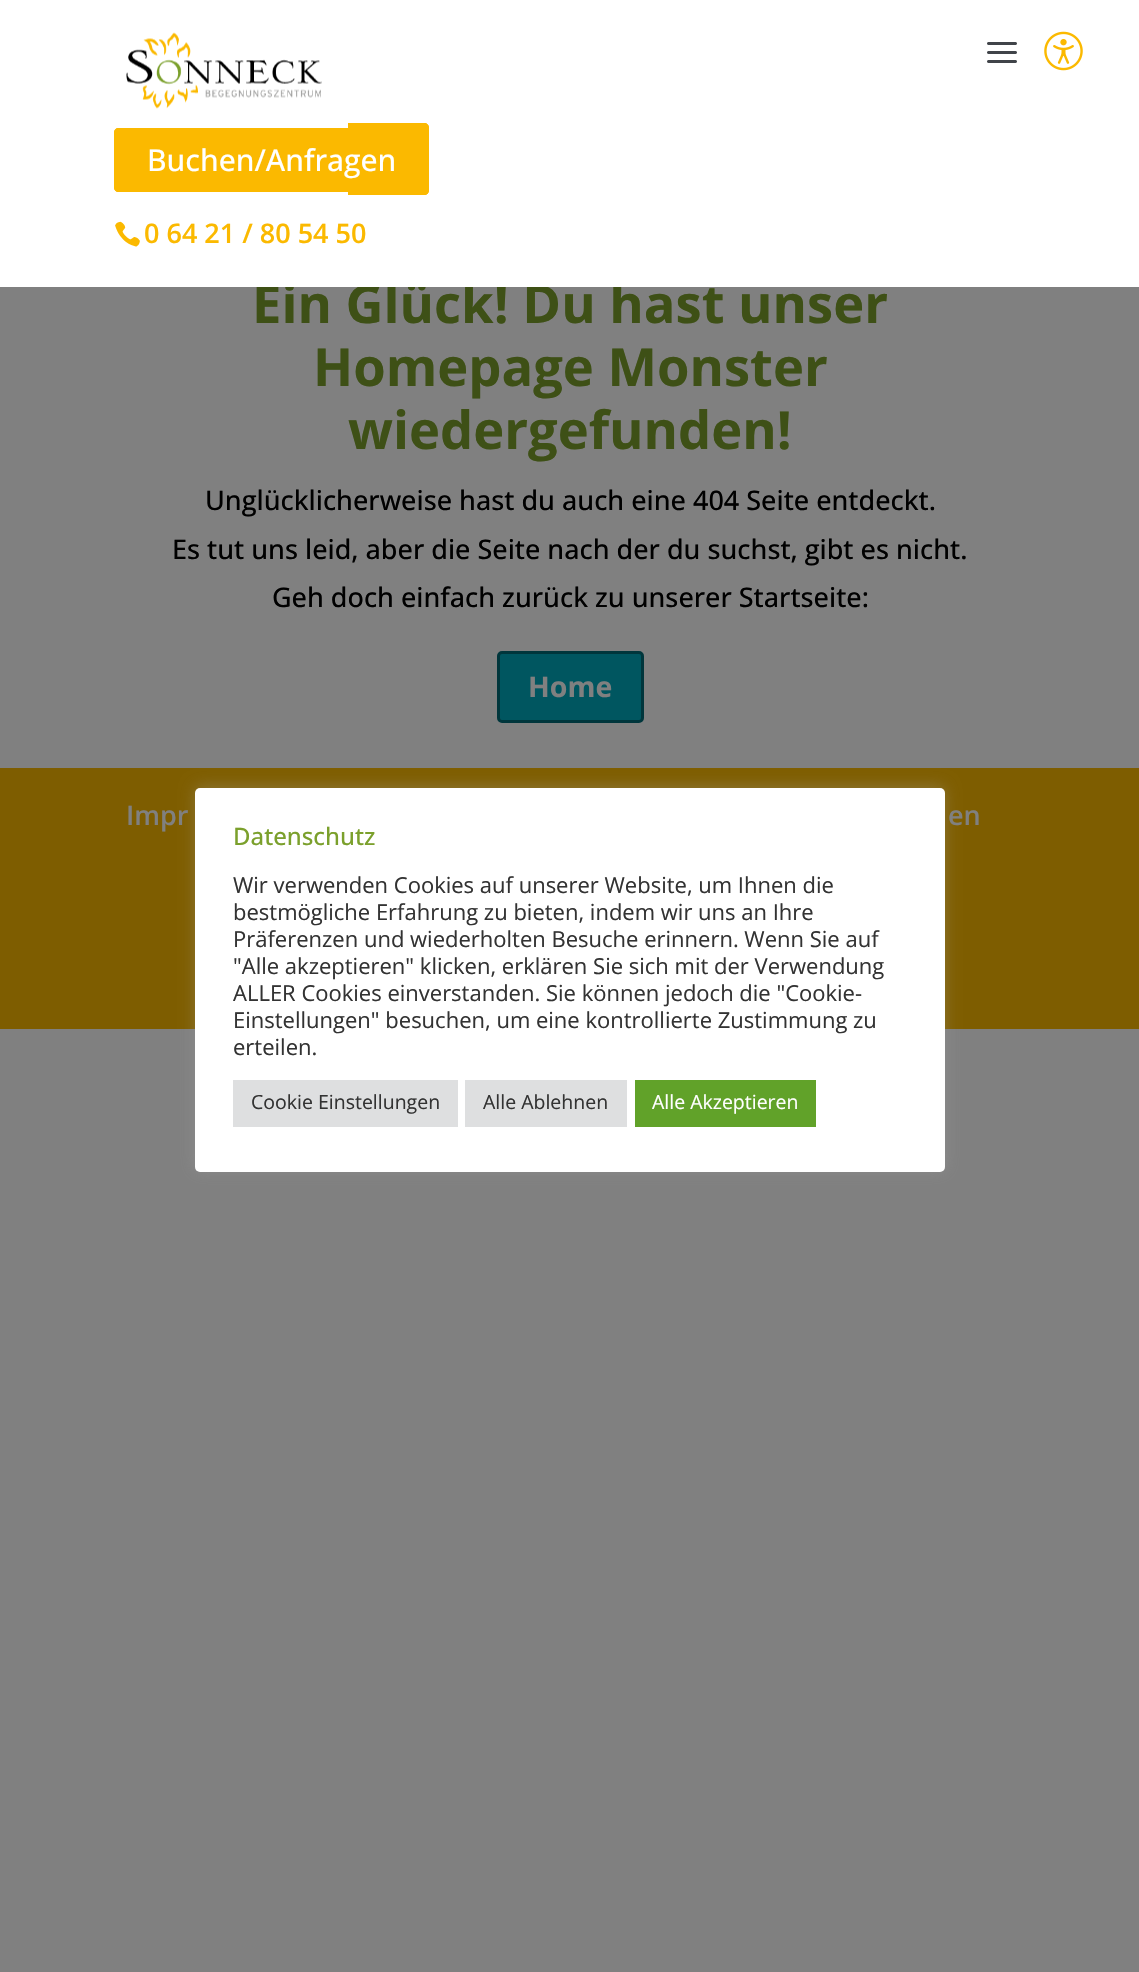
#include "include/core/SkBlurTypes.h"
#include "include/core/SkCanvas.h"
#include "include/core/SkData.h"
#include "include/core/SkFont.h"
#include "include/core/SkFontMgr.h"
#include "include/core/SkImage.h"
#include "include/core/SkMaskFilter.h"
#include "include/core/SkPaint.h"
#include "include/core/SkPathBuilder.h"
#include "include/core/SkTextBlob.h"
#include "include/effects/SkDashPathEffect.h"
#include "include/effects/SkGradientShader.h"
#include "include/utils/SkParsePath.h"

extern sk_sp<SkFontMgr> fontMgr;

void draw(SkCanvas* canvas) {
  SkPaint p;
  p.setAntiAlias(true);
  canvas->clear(SkColorSetRGB(128, 128, 128));
  p.setColor(SkColorSetRGB(0, 86, 96));
  canvas->drawRoundRect(SkRect::MakeLTRB(498.5f, 652.5f, 642.5f, 721.5f), 3.5f, 3.5f, p);
  p.setStyle(SkPaint::kStroke_Style);
  p.setStrokeWidth(3);
  p.setColor(SkColorSetRGB(0, 54, 60));
  canvas->drawRoundRect(SkRect::MakeLTRB(498.5f, 652.5f, 642.5f, 721.5f), 3.5f, 3.5f, p);
  p.setStyle(SkPaint::kFill_Style);
  p.setColor(SkColorSetRGB(126, 93, 0));
  canvas->drawRect(SkRect::MakeLTRB(0, 768, 1139, 1029), p);
  p.setColor(SkColorSetARGB(77, 172, 171, 171));
  p.setMaskFilter(SkMaskFilter::MakeBlur(kNormal_SkBlurStyle, 7.5f));
  canvas->drawRoundRect(SkRect::MakeLTRB(195, 786, 945, 1170), 5, 5, p);
  p.setMaskFilter(nullptr);
  p.setColor(SK_ColorWHITE);
  canvas->drawRoundRect(SkRect::MakeLTRB(195, 788, 945, 1172), 5, 5, p);
  p.setColor(SkColorSetRGB(222, 223, 224));
  canvas->drawRect(SkRect::MakeLTRB(233, 1080, 458, 1127), p);
  canvas->drawRect(SkRect::MakeLTRB(465, 1080, 627, 1127), p);
  p.setColor(SkColorSetRGB(97, 162, 41));
  canvas->drawRect(SkRect::MakeLTRB(635, 1080, 816, 1127), p);
  SkFont font1(fontMgr->matchFamilyStyle("Open Sans", SkFontStyle::Bold()), 52.5f);
  font1.setSubpixel(true);
  p.setColor(SkColorSetRGB(62, 80, 22));
  canvas->drawString("Ein Glück! Du hast unser", 252, 323, font1, p);
  p.setColor(SK_ColorWHITE);
  canvas->drawRect(SkRect::MakeLTRB(0, 0, 1139, 287), p);
  canvas->drawImageRect(SkImages::DeferredFromEncodedData(SkData::MakeFromFileName("images/4.png")), SkRect::MakeLTRB(115, 221, 140, 247), SkSamplingOptions());
  SkFont font2(fontMgr->matchFamilyStyle("Open Sans", SkFontStyle(600, SkFontStyle::kNormal_Width, SkFontStyle::kUpright_Slant)), 27);
  font2.setSubpixel(true);
  p.setColor(SkColorSetRGB(251, 185, 0));
  canvas->drawString("0 64 21 / 80 54 50", 144, 243, font2, p);
  canvas->drawPath(SkPathBuilder().moveTo(119, 128).lineTo(396, 128).lineTo(396, 192).lineTo(119, 192).cubicTo(116, 192, 114, 190, 114, 187).lineTo(114, 133).cubicTo(114, 130, 116, 128, 119, 128).close().detach(), p);
  canvas->drawPath(SkPathBuilder(SkPathFillType::kEvenOdd).moveTo(118, 128).lineTo(396, 128).lineTo(396, 192).lineTo(118, 192).cubicTo(116, 192, 114, 190, 114, 188).lineTo(114, 132).cubicTo(114, 130, 116, 128, 118, 128).close().moveTo(118, 130).lineTo(396, 130).lineTo(396, 189).lineTo(118, 189).cubicTo(118, 189, 117, 188, 117, 188).lineTo(117, 132).cubicTo(117, 131, 118, 130, 118, 130).close().detach(), p);
  canvas->drawPath(SkPathBuilder().moveTo(348, 123).lineTo(424, 123).cubicTo(427, 123, 429, 125, 429, 128).lineTo(429, 190).cubicTo(429, 193, 427, 195, 424, 195).lineTo(348, 195).close().detach(), p);
  canvas->drawPath(SkPathBuilder(SkPathFillType::kEvenOdd).moveTo(348, 123).lineTo(424, 123).cubicTo(427, 123, 429, 125, 429, 128).lineTo(429, 190).cubicTo(429, 193, 427, 195, 424, 195).lineTo(348, 195).close().moveTo(348, 126).lineTo(424, 126).cubicTo(425, 126, 426, 127, 426, 128).lineTo(426, 190).cubicTo(426, 191, 425, 192, 424, 192).lineTo(348, 192).close().detach(), p);
  SkFont font3(fontMgr->matchFamilyStyle("Open Sans", SkFontStyle(500, SkFontStyle::kNormal_Width, SkFontStyle::kUpright_Slant)), 30);
  font3.setSubpixel(true);
  p.setColor(SK_ColorWHITE);
  canvas->drawString("Buchen/Anfragen", 147, 171, font3, p);
  canvas->drawImageRect(SkImages::DeferredFromEncodedData(SkData::MakeFromFileName("images/3.png")), SkRect::MakeLTRB(1044, 31, 1083, 71), SkSamplingOptions());
  canvas->drawImageRect(SkImages::DeferredFromEncodedData(SkData::MakeFromFileName("images/2.png")), SkRect::MakeLTRB(987, 42, 1017, 63), SkSamplingOptions());
  canvas->drawImageRect(SkImages::DeferredFromEncodedData(SkData::MakeFromFileName("images/1.png")), SkRect::MakeLTRB(126, 32, 322, 109), SkSamplingOptions());
  p.setColor(SkColorSetRGB(62, 80, 22));
  canvas->drawString("Homepage Monster", 313, 386, font1, p);
  canvas->drawString("wiedergefunden!", 348, 449, font1, p);
  SkFont font4(fontMgr->matchFamilyStyle("Open Sans", SkFontStyle(500, SkFontStyle::kNormal_Width, SkFontStyle::kUpright_Slant)), 27);
  font4.setSubpixel(true);
  p.setColor(SK_ColorBLACK);
  canvas->drawString("Unglücklicherweise hast du auch eine 404 Seite entdeckt.", 205, 510, font4, p);
  canvas->drawString("Es tut uns leid, aber die Seite nach der du suchst, gibt es nicht.", 172, 559, font4, p);
  canvas->drawString("Geh doch einfach zurück zu unserer Startseite:", 272, 607, font4, p);
  SkFont font5(fontMgr->matchFamilyStyle("Open Sans", SkFontStyle::Bold()), 28.5f);
  font5.setSubpixel(true);
  p.setColor(SkColorSetRGB(128, 128, 128));
  canvas->drawString("Home", 528, 697, font5, p);
  canvas->drawString("Impr", 126, 825, font2, p);
  canvas->drawString("en", 948, 825, font2, p);
  SkFont font6(fontMgr->matchFamilyStyle("Open Sans", SkFontStyle(500, SkFontStyle::kNormal_Width, SkFontStyle::kUpright_Slant)), 24);
  font6.setSubpixel(true);
  p.setColor(SkColorSetRGB(123, 160, 44));
  canvas->drawString("Datenschutz", 233, 845, font6, p);
  SkFont font7(fontMgr->matchFamilyStyle("Open Sans", SkFontStyle::Normal()), 22);
  font7.setSubpixel(true);
  p.setColor(SkColorSetRGB(51, 51, 51));
  canvas->drawString("Wir verwenden Cookies auf unserer Website, um Ihnen die", 233, 893, font7, p);
  canvas->drawString("bestmögliche Erfahrung zu bieten, indem wir uns an Ihre", 233, 920, font7, p);
  canvas->drawString("Präferenzen und wiederholten Besuche erinnern. Wenn Sie auf", 233, 947, font7, p);
  canvas->drawString("\"Alle akzeptieren\" klicken, erklären Sie sich mit der Verwendung", 233, 974, font7, p);
  canvas->drawString("ALLER Cookies einverstanden. Sie können jedoch die \"Cookie-", 233, 1001, font7, p);
  canvas->drawString("Einstellungen\" besuchen, um eine kontrollierte Zustimmung zu", 233, 1028, font7, p);
  canvas->drawString("erteilen.", 233, 1055, font7, p);
  SkFont font8(fontMgr->matchFamilyStyle("Open Sans", SkFontStyle::Normal()), 19.5f);
  font8.setSubpixel(true);
  canvas->drawString("Cookie Einstellungen", 251, 1109, font8, p);
  canvas->drawString("Alle Ablehnen", 483, 1109, font8, p);
  p.setColor(SK_ColorWHITE);
  canvas->drawString("Alle Akzeptieren", 652, 1109, font8, p);
}
